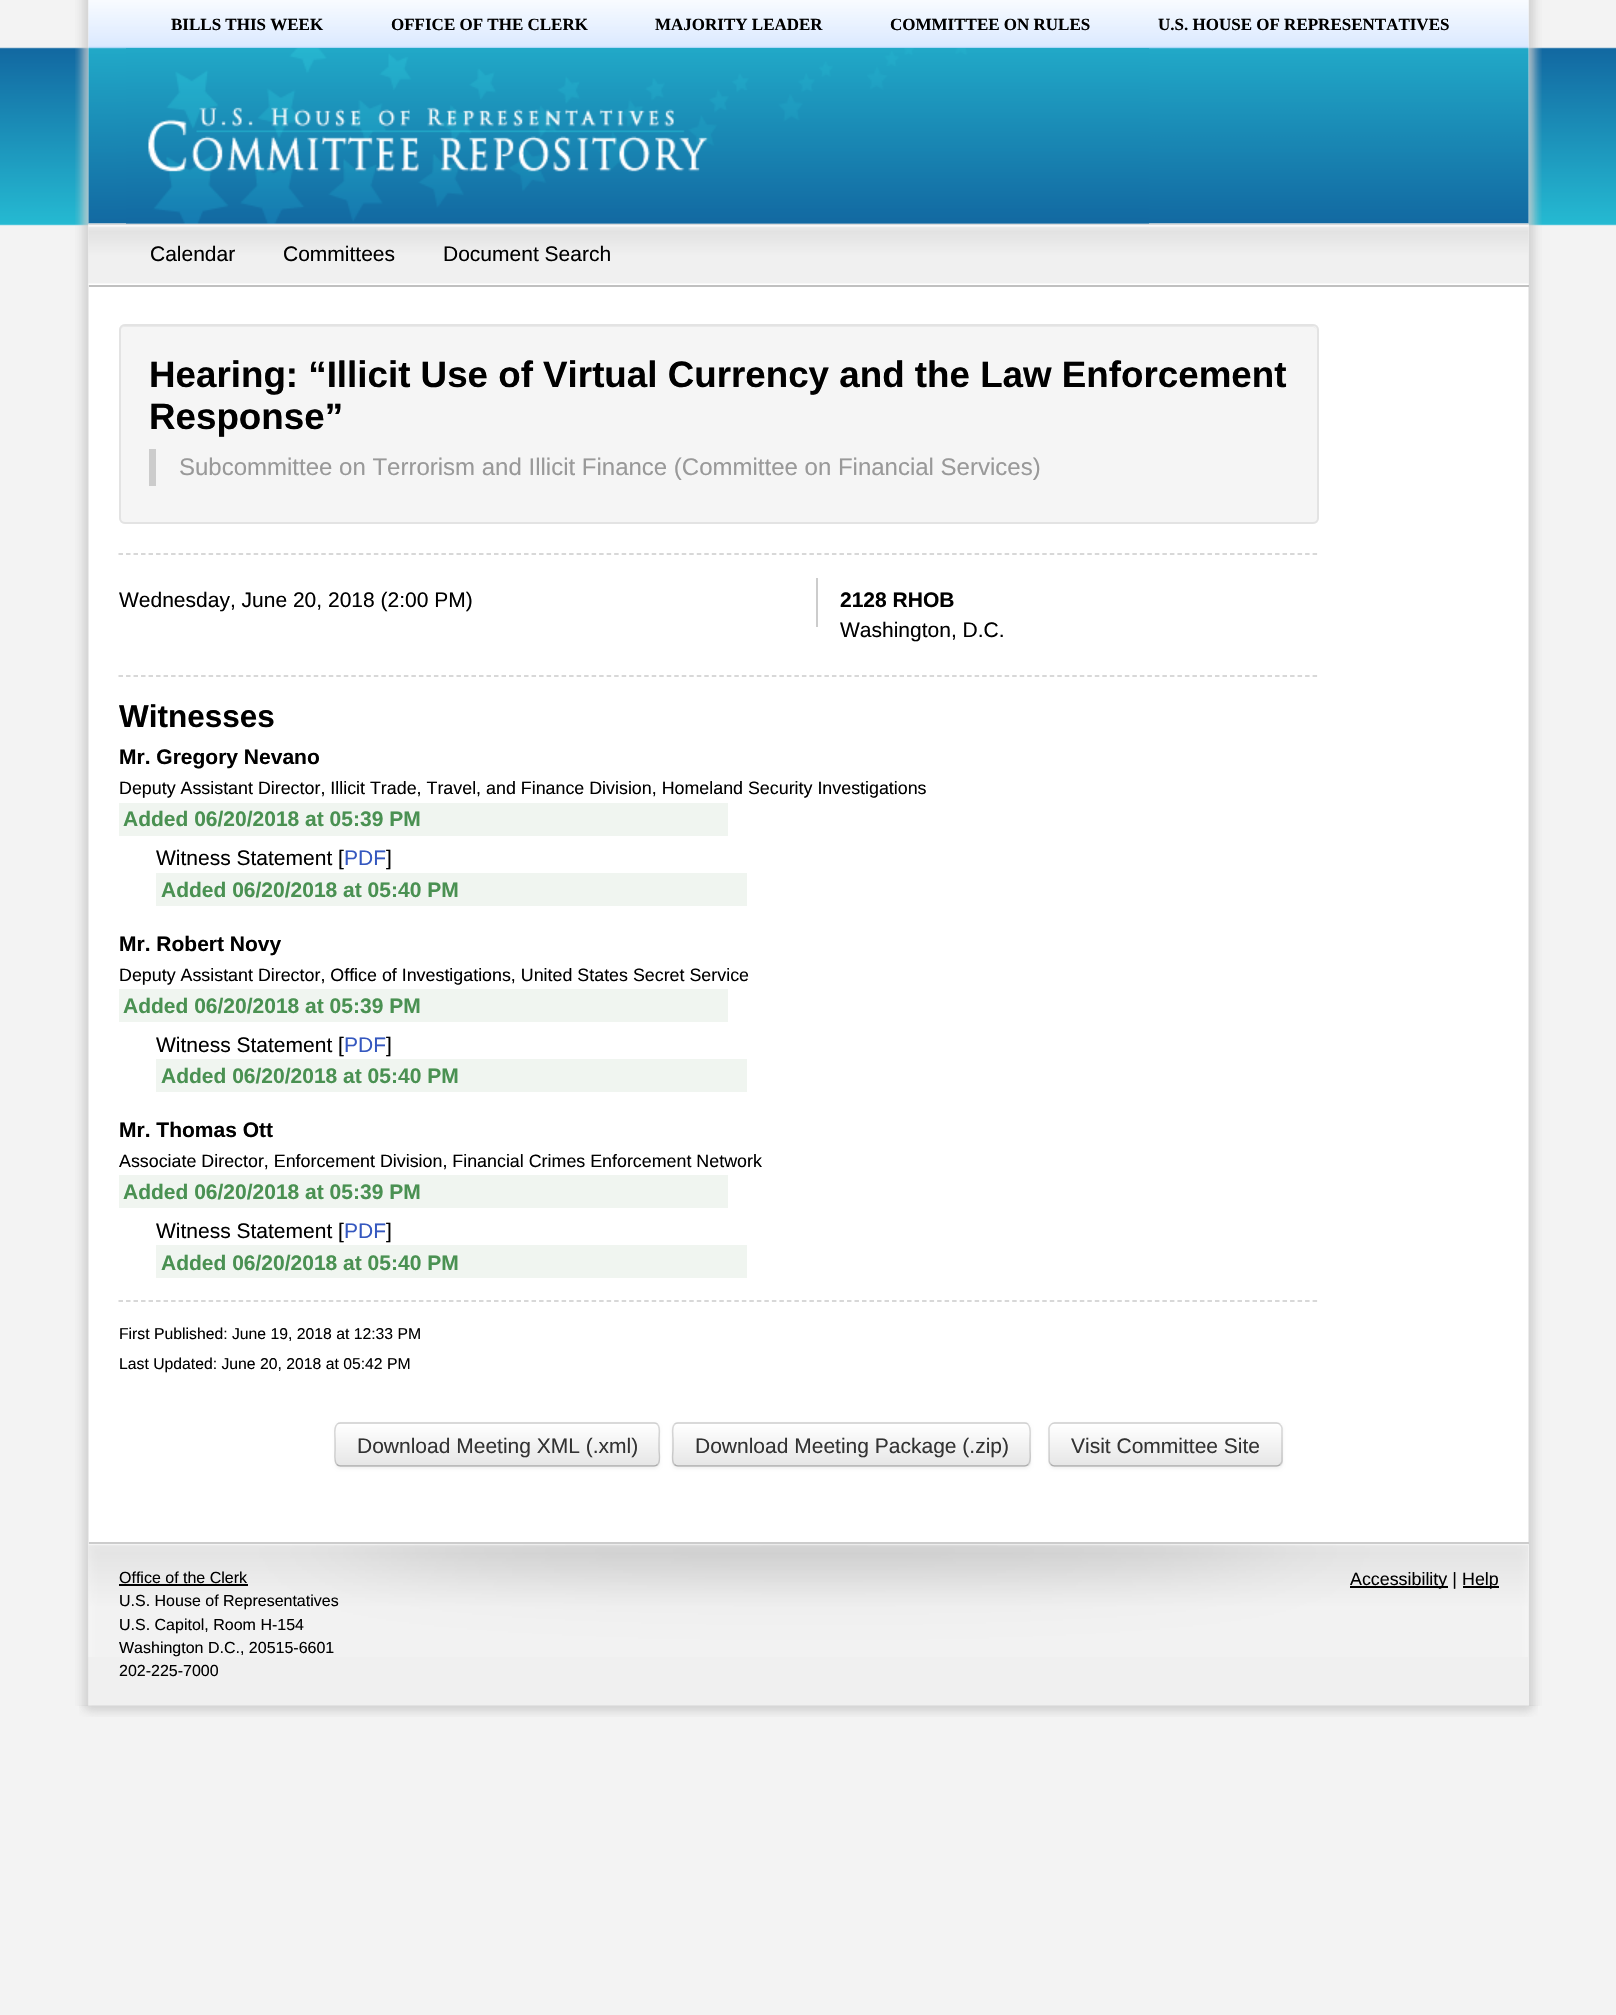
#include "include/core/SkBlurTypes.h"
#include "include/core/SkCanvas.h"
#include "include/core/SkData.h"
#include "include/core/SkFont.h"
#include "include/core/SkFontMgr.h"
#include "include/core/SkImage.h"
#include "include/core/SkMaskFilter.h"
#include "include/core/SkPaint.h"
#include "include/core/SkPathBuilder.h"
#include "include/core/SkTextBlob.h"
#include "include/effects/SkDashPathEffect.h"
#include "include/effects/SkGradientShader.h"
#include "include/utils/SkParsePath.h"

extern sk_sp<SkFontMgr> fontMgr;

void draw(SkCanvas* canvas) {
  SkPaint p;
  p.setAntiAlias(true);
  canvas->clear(SkColorSetRGB(243, 243, 243));
  canvas->drawImageRect(SkImages::DeferredFromEncodedData(SkData::MakeFromFileName("images/1.png")), SkRect::MakeLTRB(0, 47, 1616, 226), SkSamplingOptions());
  canvas->drawImageRect(SkImages::DeferredFromEncodedData(SkData::MakeFromFileName("images/2.png")), SkRect::MakeLTRB(75, 0, 1542, 1706), SkSamplingOptions());
  canvas->drawImageRect(SkImages::DeferredFromEncodedData(SkData::MakeFromFileName("images/3.png")), SkRect::MakeLTRB(88, 0, 1529, 224), SkSamplingOptions());
  canvas->drawImageRect(SkImages::DeferredFromEncodedData(SkData::MakeFromFileName("images/5.png")), SkRect::MakeLTRB(88, 223, 1529, 285), SkSamplingOptions());
  canvas->drawImageRect(SkImages::DeferredFromEncodedData(SkData::MakeFromFileName("images/4.png")), SkRect::MakeLTRB(126, 48, 1149, 224), SkSamplingOptions());
  p.setColor(SkColorSetRGB(192, 192, 192));
  canvas->drawRect(SkRect::MakeLTRB(89, 285, 1529, 287), p);
  p.setColor(SkColorSetRGB(245, 245, 245));
  canvas->drawRoundRect(SkRect::MakeLTRB(119, 324, 1319, 524), 6, 6, p);
  p.setColor(SkColorSetRGB(233, 233, 233));
  canvas->drawPath(SkPathBuilder().moveTo(124, 327).lineTo(1312, 327).cubicTo(1315, 327, 1317, 329, 1317, 332).cubicTo(1317, 329, 1315, 326, 1312, 326).lineTo(125, 326).cubicTo(122, 326, 120, 329, 120, 332).cubicTo(120, 329, 122, 327, 124, 327).close().detach(), p);
  p.setStyle(SkPaint::kStroke_Style);
  p.setStrokeWidth(2);
  p.setColor(SkColorSetRGB(227, 227, 227));
  canvas->drawRoundRect(SkRect::MakeLTRB(120, 325, 1318, 523), 5, 5, p);
  p.setStyle(SkPaint::kFill_Style);
  p.setColor(SkColorSetRGB(204, 204, 204));
  canvas->drawRect(SkRect::MakeLTRB(149, 449, 156, 486), p);
  p.setStyle(SkPaint::kStroke_Style);
  p.setStrokeWidth(1.5f);
  p.setPathEffect(SkDashPathEffect::Make({{4.5f, 3.01f}}, 0));
  canvas->drawPath(SkPathBuilder().moveTo(118.5f, 554).lineTo(1318.5f, 554).detach(), p);
  p.setPathEffect(nullptr);
  p.setStyle(SkPaint::kFill_Style);
  canvas->drawRect(SkRect::MakeLTRB(816, 578, 818, 627), p);
  p.setStyle(SkPaint::kStroke_Style);
  p.setPathEffect(SkDashPathEffect::Make({{4.5f, 3.01f}}, 0));
  canvas->drawPath(SkPathBuilder().moveTo(118.5f, 676).lineTo(1318.5f, 676).detach(), p);
  p.setPathEffect(nullptr);
  p.setStyle(SkPaint::kFill_Style);
  p.setColor(SkColorSetRGB(240, 245, 240));
  canvas->drawRect(SkRect::MakeLTRB(119, 803, 728, 836), p);
  canvas->drawRect(SkRect::MakeLTRB(156, 873, 747, 906), p);
  canvas->drawRect(SkRect::MakeLTRB(119, 989, 728, 1022), p);
  canvas->drawRect(SkRect::MakeLTRB(156, 1059, 747, 1092), p);
  canvas->drawRect(SkRect::MakeLTRB(119, 1175, 728, 1208), p);
  canvas->drawRect(SkRect::MakeLTRB(156, 1245, 747, 1278), p);
  p.setStyle(SkPaint::kStroke_Style);
  p.setColor(SkColorSetRGB(204, 204, 204));
  p.setPathEffect(SkDashPathEffect::Make({{4.5f, 3.01f}}, 0));
  canvas->drawPath(SkPathBuilder().moveTo(118.5f, 1301).lineTo(1318.5f, 1301).detach(), p);
  p.setPathEffect(nullptr);
  p.setStyle(SkPaint::kFill_Style);
  p.setColor(SkColorSetARGB(13, 0, 0, 0));
  p.setMaskFilter(SkMaskFilter::MakeBlur(kNormal_SkBlurStyle, 1.5f));
  canvas->drawRoundRect(SkRect::MakeLTRB(335, 1424, 660, 1469), 6, 6, p);
  p.setMaskFilter(nullptr);
  p.setColor(SkColorSetRGB(245, 245, 245));
  canvas->drawRoundRect(SkRect::MakeLTRB(335, 1422, 660, 1467), 6, 6, p);
  canvas->save();
  canvas->clipPath(SkPathBuilder().moveTo(341, 1422).lineTo(654, 1422).cubicTo(657.5f, 1422, 660, 1424.5f, 660, 1428).lineTo(660, 1461).cubicTo(660, 1464.5f, 657.5f, 1467, 654, 1467).lineTo(341, 1467).cubicTo(337.5f, 1467, 335, 1464.5f, 335, 1461).lineTo(335, 1428).cubicTo(335, 1424.5f, 337.5f, 1422, 341, 1422).close().detach(), true);
  {
    const SkColor colors[] = {SK_ColorWHITE, SkColorSetRGB(230, 230, 230)};
    const float stops[] = {0, 1};
    const SkPoint ends[] = {{497, 1424}, {497, 1466}};
    p.setShader(SkGradientShader::MakeLinear(ends, colors, stops, 2, SkTileMode::kClamp));
    p.setAlpha(255);
  }
  canvas->drawRect(SkRect::MakeLTRB(335, 1424, 660, 1466), p);
  canvas->restore();
  p.setShader(nullptr);
  p.setColor(SkColorSetARGB(51, 255, 255, 255));
  canvas->drawPath(SkPathBuilder().moveTo(340, 1425).lineTo(654, 1425).cubicTo(656, 1425, 658, 1427, 658, 1430).lineTo(658, 1462).lineTo(657, 1465).cubicTo(658, 1464, 659, 1462, 659, 1461).lineTo(659, 1429).cubicTo(659, 1426, 657, 1424, 654, 1424).lineTo(341, 1424).cubicTo(338, 1424, 336, 1426, 336, 1429).lineTo(336, 1430).cubicTo(336, 1427, 338, 1425, 340, 1425).close().detach(), p);
  p.setStyle(SkPaint::kStroke_Style);
  p.setColor(SkColorSetARGB(64, 0, 0, 0));
  canvas->drawPath(SkPathBuilder().moveTo(657.5f, 1464.5f).cubicTo(656.5f, 1465.5f, 655.5f, 1466, 654, 1466).lineTo(340.5f, 1466).cubicTo(339, 1466, 338, 1465.5f, 337, 1464.5f).detach(), p);
  p.setColor(SkColorSetARGB(38, 0, 0, 0));
  canvas->drawPath(SkPathBuilder().moveTo(337, 1464.5f).cubicTo(333.5f, 1461.5f, 335, 1453.5f, 335, 1450).lineTo(335, 1439).cubicTo(335, 1435, 333, 1423, 340.5f, 1423).lineTo(654, 1423).cubicTo(661.5f, 1423, 659, 1435, 659, 1439).lineTo(659, 1450).cubicTo(659, 1453.5f, 661, 1461.5f, 657.5f, 1464.5f).detach(), p);
  p.setStyle(SkPaint::kFill_Style);
  p.setColor(SkColorSetARGB(13, 0, 0, 0));
  p.setMaskFilter(SkMaskFilter::MakeBlur(kNormal_SkBlurStyle, 1.5f));
  canvas->drawRoundRect(SkRect::MakeLTRB(672, 1424, 1031, 1469), 6, 6, p);
  p.setMaskFilter(nullptr);
  p.setColor(SkColorSetRGB(245, 245, 245));
  canvas->drawRoundRect(SkRect::MakeLTRB(672, 1422, 1031, 1467), 6, 6, p);
  canvas->save();
  canvas->clipPath(SkPathBuilder().moveTo(678, 1422).lineTo(1025, 1422).cubicTo(1028.5f, 1422, 1031, 1424.5f, 1031, 1428).lineTo(1031, 1461).cubicTo(1031, 1464.5f, 1028.5f, 1467, 1025, 1467).lineTo(678, 1467).cubicTo(674.5f, 1467, 672, 1464.5f, 672, 1461).lineTo(672, 1428).cubicTo(672, 1424.5f, 674.5f, 1422, 678, 1422).close().detach(), true);
  {
    const SkColor colors[] = {SK_ColorWHITE, SkColorSetRGB(230, 230, 230)};
    const float stops[] = {0, 1};
    const SkPoint ends[] = {{851, 1424}, {851, 1466}};
    p.setShader(SkGradientShader::MakeLinear(ends, colors, stops, 2, SkTileMode::kClamp));
    p.setAlpha(255);
  }
  canvas->drawRect(SkRect::MakeLTRB(672, 1424, 1031, 1466), p);
  canvas->restore();
  p.setStyle(SkPaint::kStroke_Style);
  p.setShader(nullptr);
  p.setColor(SkColorSetARGB(64, 0, 0, 0));
  canvas->drawPath(SkPathBuilder().moveTo(1028, 1464.5f).cubicTo(1027, 1465.5f, 1026, 1466, 1024.5f, 1466).lineTo(678, 1466).cubicTo(676.5f, 1466, 675.5f, 1465.5f, 674.5f, 1464.5f).detach(), p);
  p.setColor(SkColorSetARGB(38, 0, 0, 0));
  canvas->drawPath(SkPathBuilder().moveTo(674.5f, 1464.5f).cubicTo(671, 1461.5f, 673, 1453.5f, 673, 1450).lineTo(673, 1439).cubicTo(673, 1435, 670.5f, 1423, 678, 1423).lineTo(1024.5f, 1423).cubicTo(1032, 1423, 1030, 1435, 1030, 1439).lineTo(1030, 1450).cubicTo(1030, 1453.5f, 1031.5f, 1461.5f, 1028, 1464.5f).detach(), p);
  p.setStyle(SkPaint::kFill_Style);
  p.setColor(SkColorSetARGB(13, 0, 0, 0));
  p.setMaskFilter(SkMaskFilter::MakeBlur(kNormal_SkBlurStyle, 1.5f));
  canvas->drawRoundRect(SkRect::MakeLTRB(1049, 1424, 1283, 1469), 6, 6, p);
  p.setMaskFilter(nullptr);
  p.setColor(SkColorSetRGB(245, 245, 245));
  canvas->drawRoundRect(SkRect::MakeLTRB(1049, 1422, 1283, 1467), 6, 6, p);
  canvas->save();
  canvas->clipPath(SkPathBuilder().moveTo(1055, 1422).lineTo(1277, 1422).cubicTo(1280.5f, 1422, 1283, 1424.5f, 1283, 1428).lineTo(1283, 1461).cubicTo(1283, 1464.5f, 1280.5f, 1467, 1277, 1467).lineTo(1055, 1467).cubicTo(1051.5f, 1467, 1049, 1464.5f, 1049, 1461).lineTo(1049, 1428).cubicTo(1049, 1424.5f, 1051.5f, 1422, 1055, 1422).close().detach(), true);
  {
    const SkColor colors[] = {SK_ColorWHITE, SkColorSetRGB(230, 230, 230)};
    const float stops[] = {0, 1};
    const SkPoint ends[] = {{1166, 1424}, {1166, 1466}};
    p.setShader(SkGradientShader::MakeLinear(ends, colors, stops, 2, SkTileMode::kClamp));
    p.setAlpha(255);
  }
  canvas->drawRect(SkRect::MakeLTRB(1049, 1424, 1283, 1466), p);
  canvas->restore();
  p.setStyle(SkPaint::kStroke_Style);
  p.setShader(nullptr);
  p.setColor(SkColorSetARGB(64, 0, 0, 0));
  canvas->drawPath(SkPathBuilder().moveTo(1280, 1464.5f).cubicTo(1279, 1465.5f, 1278, 1466, 1276.5f, 1466).lineTo(1054.5f, 1466).cubicTo(1053, 1466, 1052, 1465.5f, 1051, 1464.5f).detach(), p);
  p.setColor(SkColorSetARGB(38, 0, 0, 0));
  canvas->drawPath(SkPathBuilder().moveTo(1051, 1464.5f).cubicTo(1050, 1463.5f, 1049, 1462.5f, 1049, 1461).lineTo(1049, 1428).cubicTo(1049, 1426.5f, 1050, 1425.5f, 1051, 1424.5f).cubicTo(1052, 1423.5f, 1053, 1423, 1054.5f, 1423).lineTo(1276.5f, 1423).cubicTo(1278, 1423, 1279, 1423.5f, 1280, 1424.5f).cubicTo(1281, 1425.5f, 1282, 1426.5f, 1282, 1428).lineTo(1282, 1461).cubicTo(1282, 1462.5f, 1281, 1463.5f, 1280, 1464.5f).detach(), p);
  p.setStyle(SkPaint::kFill_Style);
  p.setColor(SkColorSetRGB(240, 240, 240));
  canvas->drawRect(SkRect::MakeLTRB(89, 1544, 1529, 1706), p);
  canvas->drawImageRect(SkImages::DeferredFromEncodedData(SkData::MakeFromFileName("images/6.png")), SkRect::MakeLTRB(88, 1544, 1528, 1657), SkSamplingOptions());
  p.setColor(SkColorSetRGB(204, 204, 204));
  canvas->drawRect(SkRect::MakeLTRB(89, 1542, 1529, 1544), p);
  p.setColor(SK_ColorBLACK);
  canvas->drawRect(SkRect::MakeLTRB(119, 1584, 248, 1586), p);
  canvas->drawRect(SkRect::MakeLTRB(1350, 1586, 1448, 1588), p);
  canvas->drawRect(SkRect::MakeLTRB(1463, 1586, 1499, 1588), p);
  canvas->drawImageRect(SkImages::DeferredFromEncodedData(SkData::MakeFromFileName("images/7.png")), SkRect::MakeLTRB(79, 1705, 1538, 1717), SkSamplingOptions());
  SkFont font1(fontMgr->matchFamilyStyle("Liberation Serif", SkFontStyle::Bold()), 17);
  font1.setSubpixel(true);
  canvas->drawString("BILLS THIS WEEK", 171, 30, font1, p);
  canvas->drawString("OFFICE OF THE CLERK", 391, 30, font1, p);
  canvas->drawString("MAJORITY LEADER", 655, 30, font1, p);
  canvas->drawString("COMMITTEE ON RULES", 890, 30, font1, p);
  canvas->drawString("U.S. HOUSE OF REPRESENTATIVES", 1158, 30, font1, p);
  SkFont font2(fontMgr->matchFamilyStyle("Liberation Sans", SkFontStyle::Normal()), 21);
  font2.setSubpixel(true);
  canvas->drawString("Calendar", 150, 261, font2, p);
  canvas->drawString("Committees", 283, 261, font2, p);
  canvas->drawString("Document Search", 443, 261, font2, p);
  SkFont font3(fontMgr->matchFamilyStyle("Liberation Sans", SkFontStyle::Bold()), 36.75f);
  font3.setSubpixel(true);
  canvas->drawString("Hearing: “Illicit Use of Virtual Currency and the Law Enforcement", 149, 387, font3, p);
  canvas->drawString("Response”", 149, 429, font3, p);
  SkFont font4(fontMgr->matchFamilyStyle("Liberation Sans", SkFontStyle::Normal()), 24);
  font4.setSubpixel(true);
  p.setColor(SkColorSetRGB(153, 153, 153));
  canvas->drawString("Subcommittee on Terrorism and Illicit Finance (Committee on Financial Services)", 179, 475, font4, p);
  p.setColor(SK_ColorBLACK);
  canvas->drawString("Wednesday, June 20, 2018 (2:00 PM)", 119, 607, font2, p);
  SkFont font5(fontMgr->matchFamilyStyle("Liberation Sans", SkFontStyle::Bold()), 21);
  font5.setSubpixel(true);
  canvas->drawString("2128 RHOB", 840, 607, font5, p);
  canvas->drawString("Washington, D.C.", 840, 637, font2, p);
  SkFont font6(fontMgr->matchFamilyStyle("Liberation Sans", SkFontStyle::Bold()), 31.5f);
  font6.setSubpixel(true);
  canvas->drawString("Witnesses", 119, 727, font6, p);
  canvas->drawString("Mr. Gregory Nevano", 119, 764, font5, p);
  SkFont font7(fontMgr->matchFamilyStyle("Liberation Sans", SkFontStyle::Normal()), 17.85f);
  font7.setSubpixel(true);
  canvas->drawString("Deputy Assistant Director, Illicit Trade, Travel, and Finance Division, Homeland Security Investigations", 119, 794, font7, p);
  p.setColor(SkColorSetRGB(74, 145, 82));
  canvas->drawString("Added 06/20/2018 at 05:39 PM", 123, 826, font5, p);
  p.setColor(SK_ColorBLACK);
  canvas->drawString("Witness Statement [", 156, 865, font2, p);
  p.setColor(SkColorSetRGB(52, 87, 191));
  canvas->drawString("PDF", 344, 865, font2, p);
  p.setColor(SK_ColorBLACK);
  canvas->drawString("]", 386, 865, font2, p);
  p.setColor(SkColorSetRGB(74, 145, 82));
  canvas->drawString("Added 06/20/2018 at 05:40 PM", 161, 897, font5, p);
  p.setColor(SK_ColorBLACK);
  canvas->drawString("Mr. Robert Novy", 119, 951, font5, p);
  canvas->drawString("Deputy Assistant Director, Office of Investigations, United States Secret Service", 119, 981, font7, p);
  p.setColor(SkColorSetRGB(74, 145, 82));
  canvas->drawString("Added 06/20/2018 at 05:39 PM", 123, 1013, font5, p);
  p.setColor(SK_ColorBLACK);
  canvas->drawString("Witness Statement [", 156, 1052, font2, p);
  p.setColor(SkColorSetRGB(52, 87, 191));
  canvas->drawString("PDF", 344, 1052, font2, p);
  p.setColor(SK_ColorBLACK);
  canvas->drawString("]", 386, 1052, font2, p);
  p.setColor(SkColorSetRGB(74, 145, 82));
  canvas->drawString("Added 06/20/2018 at 05:40 PM", 161, 1083, font5, p);
  p.setColor(SK_ColorBLACK);
  canvas->drawString("Mr. Thomas Ott", 119, 1137, font5, p);
  canvas->drawString("Associate Director, Enforcement Division, Financial Crimes Enforcement Network", 119, 1167, font7, p);
  p.setColor(SkColorSetRGB(74, 145, 82));
  canvas->drawString("Added 06/20/2018 at 05:39 PM", 123, 1199, font5, p);
  p.setColor(SK_ColorBLACK);
  canvas->drawString("Witness Statement [", 156, 1238, font2, p);
  p.setColor(SkColorSetRGB(52, 87, 191));
  canvas->drawString("PDF", 344, 1238, font2, p);
  p.setColor(SK_ColorBLACK);
  canvas->drawString("]", 386, 1238, font2, p);
  p.setColor(SkColorSetRGB(74, 145, 82));
  canvas->drawString("Added 06/20/2018 at 05:40 PM", 161, 1270, font5, p);
  SkFont font8(fontMgr->matchFamilyStyle("Liberation Sans", SkFontStyle::Normal()), 15.75f);
  font8.setSubpixel(true);
  p.setColor(SK_ColorBLACK);
  canvas->drawString("First Published: June 19, 2018 at 12:33 PM", 119, 1339, font8, p);
  canvas->drawString("Last Updated: June 20, 2018 at 05:42 PM", 119, 1369, font8, p);
  p.setColor(SkColorSetRGB(51, 51, 51));
  canvas->drawString("Download Meeting XML (.xml)", 357, 1453, font2, p);
  canvas->drawString("Download Meeting Package (.zip)", 695, 1453, font2, p);
  canvas->drawString("Visit Committee Site", 1071, 1453, font2, p);
  SkFont font9(fontMgr->matchFamilyStyle("Liberation Sans", SkFontStyle::Normal()), 16);
  font9.setSubpixel(true);
  p.setColor(SK_ColorBLACK);
  canvas->drawString("Office of the Clerk", 119, 1583, font9, p);
  canvas->drawString("U.S. House of Representatives", 119, 1606, font9, p);
  canvas->drawString("U.S. Capitol, Room H-154", 119, 1630, font9, p);
  canvas->drawString("Washington D.C., 20515-6601", 119, 1653, font9, p);
  canvas->drawString("202-225-7000", 119, 1676, font9, p);
  canvas->drawString("Accessibility |", 1350, 1585, font7, p);
  canvas->drawString("Help", 1462, 1585, font7, p);
}
